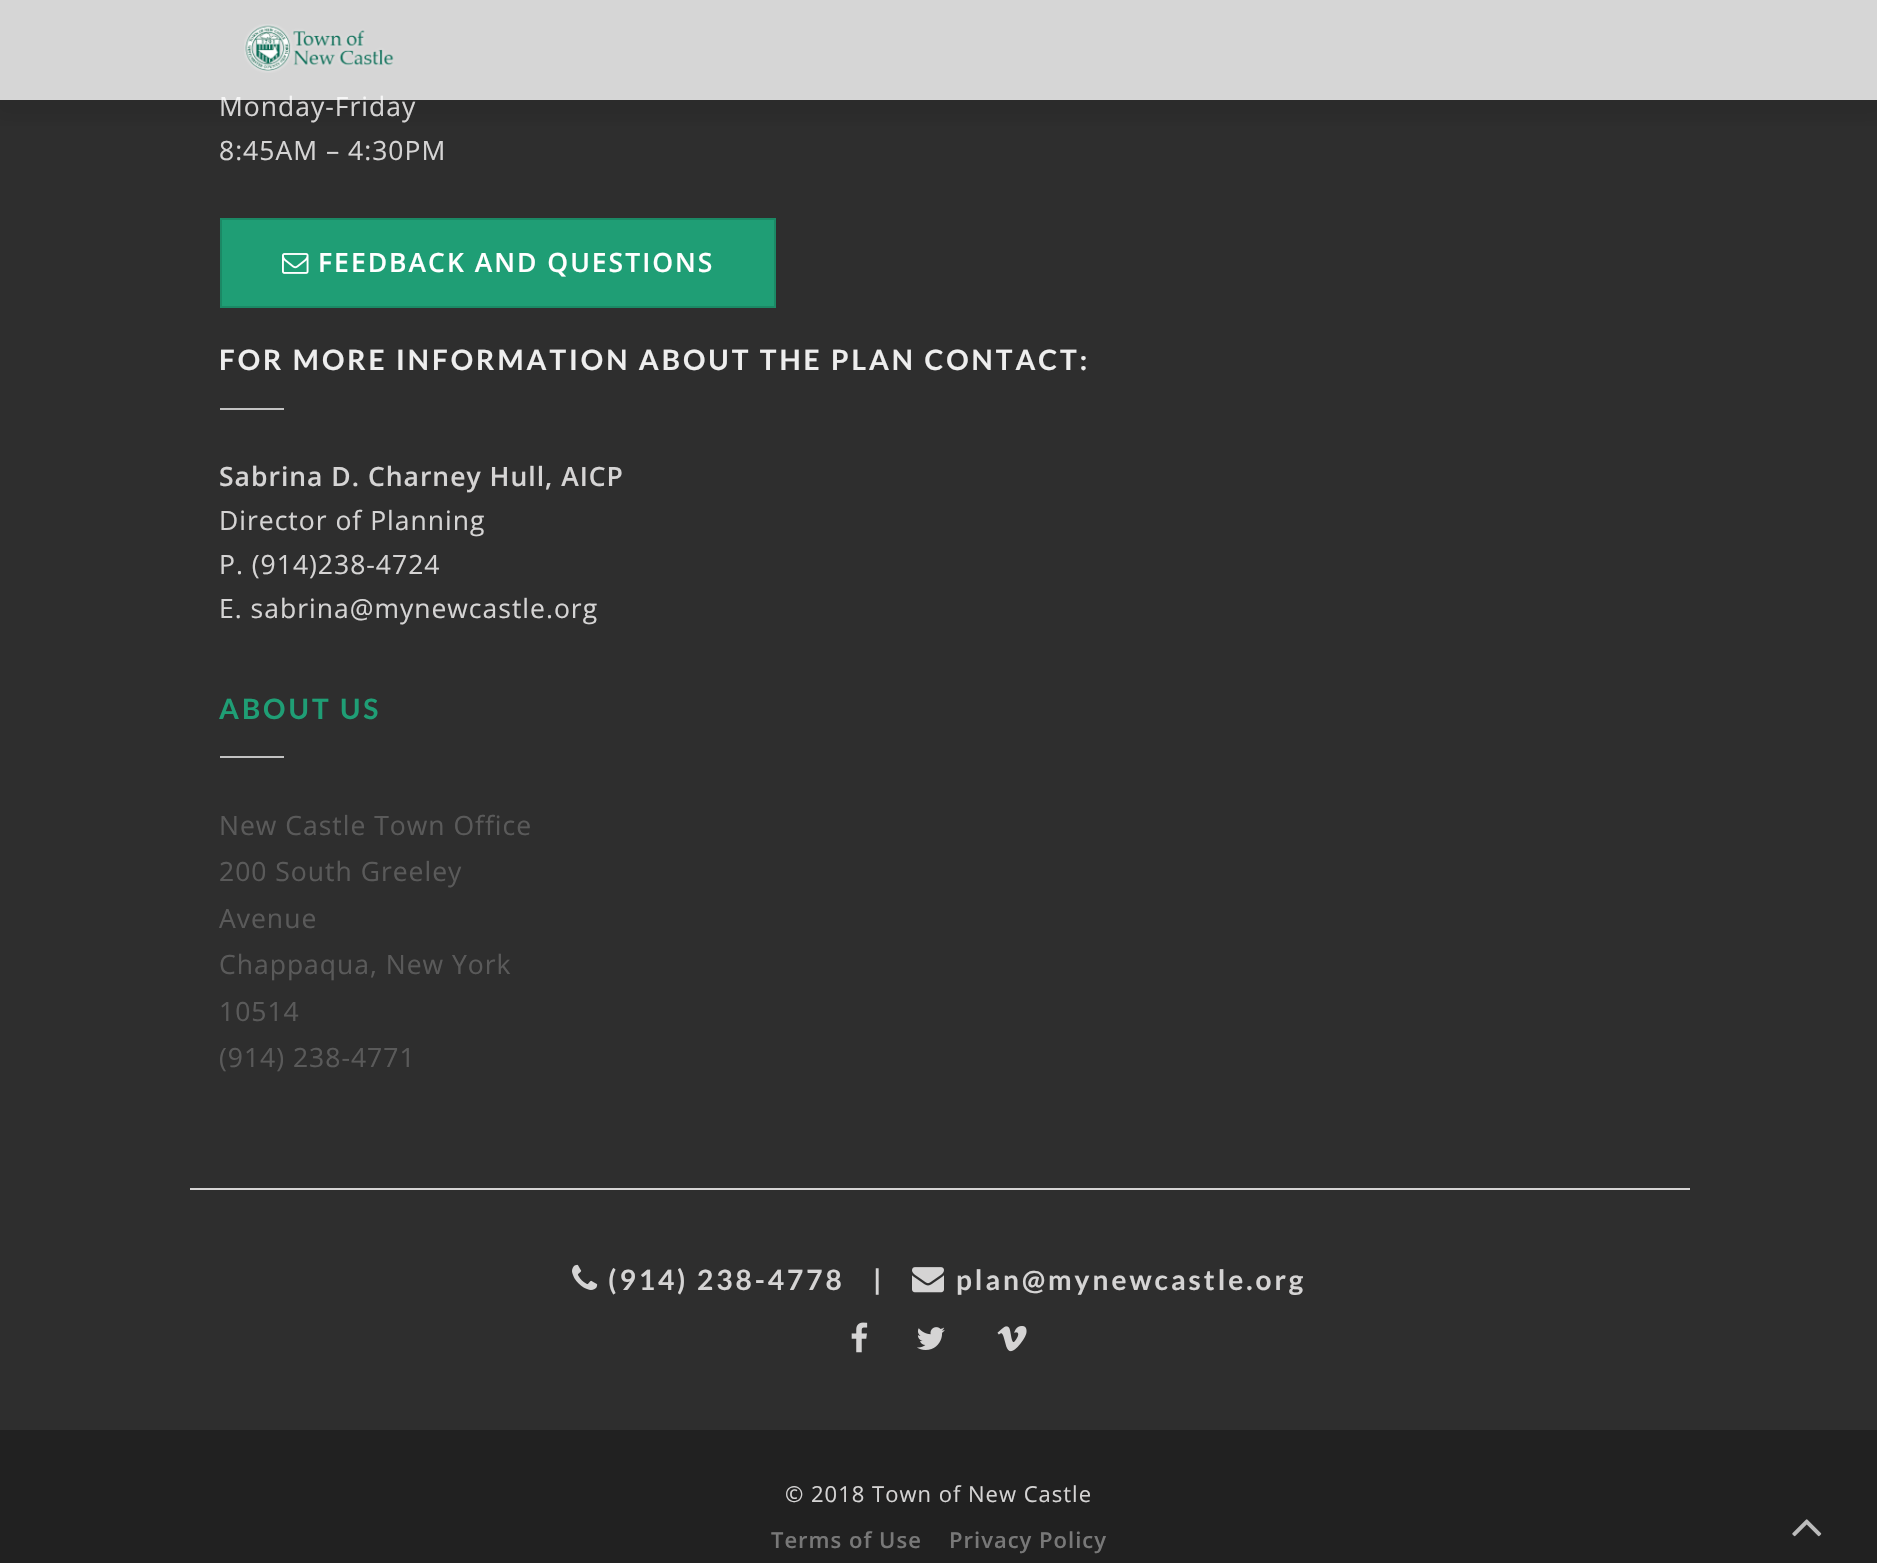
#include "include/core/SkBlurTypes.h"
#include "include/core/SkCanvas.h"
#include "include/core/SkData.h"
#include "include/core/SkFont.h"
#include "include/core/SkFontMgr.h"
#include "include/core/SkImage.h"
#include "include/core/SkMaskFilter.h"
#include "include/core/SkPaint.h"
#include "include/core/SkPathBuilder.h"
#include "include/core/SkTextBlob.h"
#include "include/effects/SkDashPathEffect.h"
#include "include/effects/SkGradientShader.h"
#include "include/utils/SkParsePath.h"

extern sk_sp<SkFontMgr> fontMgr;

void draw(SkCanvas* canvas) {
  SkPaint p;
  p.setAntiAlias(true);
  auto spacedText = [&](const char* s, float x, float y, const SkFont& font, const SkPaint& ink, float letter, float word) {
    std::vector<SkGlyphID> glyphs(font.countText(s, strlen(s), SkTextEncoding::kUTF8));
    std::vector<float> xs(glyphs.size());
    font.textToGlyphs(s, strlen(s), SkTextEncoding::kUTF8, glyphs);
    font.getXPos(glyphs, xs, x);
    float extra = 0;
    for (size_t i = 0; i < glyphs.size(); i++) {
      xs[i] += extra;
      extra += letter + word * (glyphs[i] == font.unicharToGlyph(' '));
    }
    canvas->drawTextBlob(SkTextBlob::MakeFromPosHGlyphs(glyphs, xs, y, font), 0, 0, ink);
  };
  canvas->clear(SkColorSetRGB(46, 46, 46));
  canvas->save();
  canvas->clipRect(SkRect::MakeLTRB(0, 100, 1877, 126));
  p.setColor(SkColorSetARGB(18, 0, 0, 0));
  p.setMaskFilter(SkMaskFilter::MakeBlur(kNormal_SkBlurStyle, 10));
  canvas->drawRect(SkRect::MakeLTRB(-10, 0, 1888, 120), p);
  p.setMaskFilter(nullptr);
  canvas->restore();
  p.setColor(SkColorSetRGB(213, 212, 212));
  canvas->drawRect(SkRect::MakeLTRB(190, 1188, 1690, 1190), p);
  p.setColor(SkColorSetRGB(31, 158, 117));
  canvas->drawRect(SkRect::MakeLTRB(221, 219, 775, 307), p);
  p.setStyle(SkPaint::kStroke_Style);
  p.setStrokeWidth(2);
  p.setColor(SkColorSetRGB(27, 137, 101));
  canvas->drawRect(SkRect::MakeLTRB(221, 219, 775, 307), p);
  canvas->drawImageRect(SkImages::DeferredFromEncodedData(SkData::MakeFromFileName("images/2.png")), SkRect::MakeLTRB(282, 253, 309, 274), SkSamplingOptions());
  p.setStyle(SkPaint::kFill_Style);
  p.setColor(SkColorSetRGB(194, 194, 194));
  canvas->drawRect(SkRect::MakeLTRB(220, 408, 284, 410), p);
  canvas->drawRect(SkRect::MakeLTRB(220, 756, 284, 758), p);
  canvas->drawImageRect(SkImages::DeferredFromEncodedData(SkData::MakeFromFileName("images/3.png")), SkRect::MakeLTRB(572, 1264, 598, 1290), SkSamplingOptions());
  canvas->drawImageRect(SkImages::DeferredFromEncodedData(SkData::MakeFromFileName("images/4.png")), SkRect::MakeLTRB(912, 1267, 944, 1293), SkSamplingOptions());
  canvas->drawImageRect(SkImages::DeferredFromEncodedData(SkData::MakeFromFileName("images/5.png")), SkRect::MakeLTRB(851, 1322, 868, 1353), SkSamplingOptions());
  canvas->drawImageRect(SkImages::DeferredFromEncodedData(SkData::MakeFromFileName("images/6.png")), SkRect::MakeLTRB(917, 1327, 945, 1350), SkSamplingOptions());
  canvas->drawImageRect(SkImages::DeferredFromEncodedData(SkData::MakeFromFileName("images/7.png")), SkRect::MakeLTRB(997, 1326, 1027, 1352), SkSamplingOptions());
  p.setColor(SkColorSetRGB(33, 33, 33));
  canvas->drawRect(SkRect::MakeLTRB(0, 1430, 1877, 1563), p);
  canvas->drawImageRect(SkImages::DeferredFromEncodedData(SkData::MakeFromFileName("images/8.png")), SkRect::MakeLTRB(1792, 1519, 1822, 1537), SkSamplingOptions());
  SkFont font1(fontMgr->matchFamilyStyle("Open Sans", SkFontStyle::Normal()), 26.5f);
  font1.setSubpixel(true);
  p.setColor(SkColorSetRGB(213, 212, 212));
  spacedText("Monday-Friday", 219, 116, font1, p, 1, 0);
  p.setColor(SkColorSetARGB(204, 255, 255, 255));
  canvas->drawRect(SkRect::MakeLTRB(0, 0, 1877, 100), p);
  canvas->drawImageRect(SkImages::DeferredFromEncodedData(SkData::MakeFromFileName("images/1.png")), SkRect::MakeLTRB(244, 24, 394, 73), SkSamplingOptions());
  p.setColor(SkColorSetRGB(213, 212, 212));
  spacedText("8:45AM – 4:30PM", 219, 160, font1, p, 1, 0);
  SkFont font2(fontMgr->matchFamilyStyle("Open Sans", SkFontStyle(600, SkFontStyle::kNormal_Width, SkFontStyle::kUpright_Slant)), 26.5f);
  font2.setSubpixel(true);
  p.setColor(SK_ColorWHITE);
  spacedText("FEEDBACK AND QUESTIONS", 318, 272, font2, p, 2, 0);
  SkFont font3(fontMgr->matchFamilyStyle("Lato", SkFontStyle::Bold()), 28);
  font3.setSubpixel(true);
  p.setColor(SkColorSetRGB(238, 238, 238));
  spacedText("FOR MORE INFORMATION ABOUT THE PLAN CONTACT:", 219, 370, font3, p, 3, 0);
  p.setColor(SkColorSetRGB(213, 212, 212));
  spacedText("Sabrina D. Charney Hull, AICP", 219, 486, font2, p, 1, 0);
  spacedText("Director of Planning", 219, 530, font1, p, 1, 0);
  spacedText("P. (914)238-4724", 219, 574, font1, p, 1, 0);
  spacedText("E. sabrina@mynewcastle.org", 219, 618, font1, p, 1, 0);
  p.setColor(SkColorSetRGB(31, 158, 117));
  spacedText("ABOUT US", 219, 719, font3, p, 3, 0);
  p.setColor(SkColorSetRGB(90, 90, 90));
  spacedText("New Castle Town Office", 219, 835, font1, p, 1, 0);
  spacedText("200 South Greeley", 219, 881, font1, p, 1, 0);
  spacedText("Avenue", 219, 928, font1, p, 1, 0);
  spacedText("Chappaqua, New York", 219, 974, font1, p, 1, 0);
  spacedText("10514", 219, 1021, font1, p, 1, 0);
  spacedText("(914) 238-4771", 219, 1067, font1, p, 1, 0);
  p.setColor(SkColorSetRGB(213, 212, 212));
  spacedText("(914) 238-4778", 608, 1290, font3, p, 3, 0);
  spacedText("|", 873, 1290, font3, p, 3, 0);
  spacedText("plan@mynewcastle.org", 956, 1290, font3, p, 3, 0);
  SkFont font4(fontMgr->matchFamilyStyle("Open Sans", SkFontStyle::Normal()), 22);
  font4.setSubpixel(true);
  spacedText("© 2018 Town of New Castle", 785, 1502, font4, p, 1, 0);
  SkFont font5(fontMgr->matchFamilyStyle("Open Sans", SkFontStyle(600, SkFontStyle::kNormal_Width, SkFontStyle::kUpright_Slant)), 22);
  font5.setSubpixel(true);
  p.setColor(SkColorSetRGB(120, 120, 120));
  spacedText("Terms of Use", 771, 1548, font5, p, 1, 0);
  spacedText("Privacy Policy", 949, 1548, font5, p, 1, 0);
}
